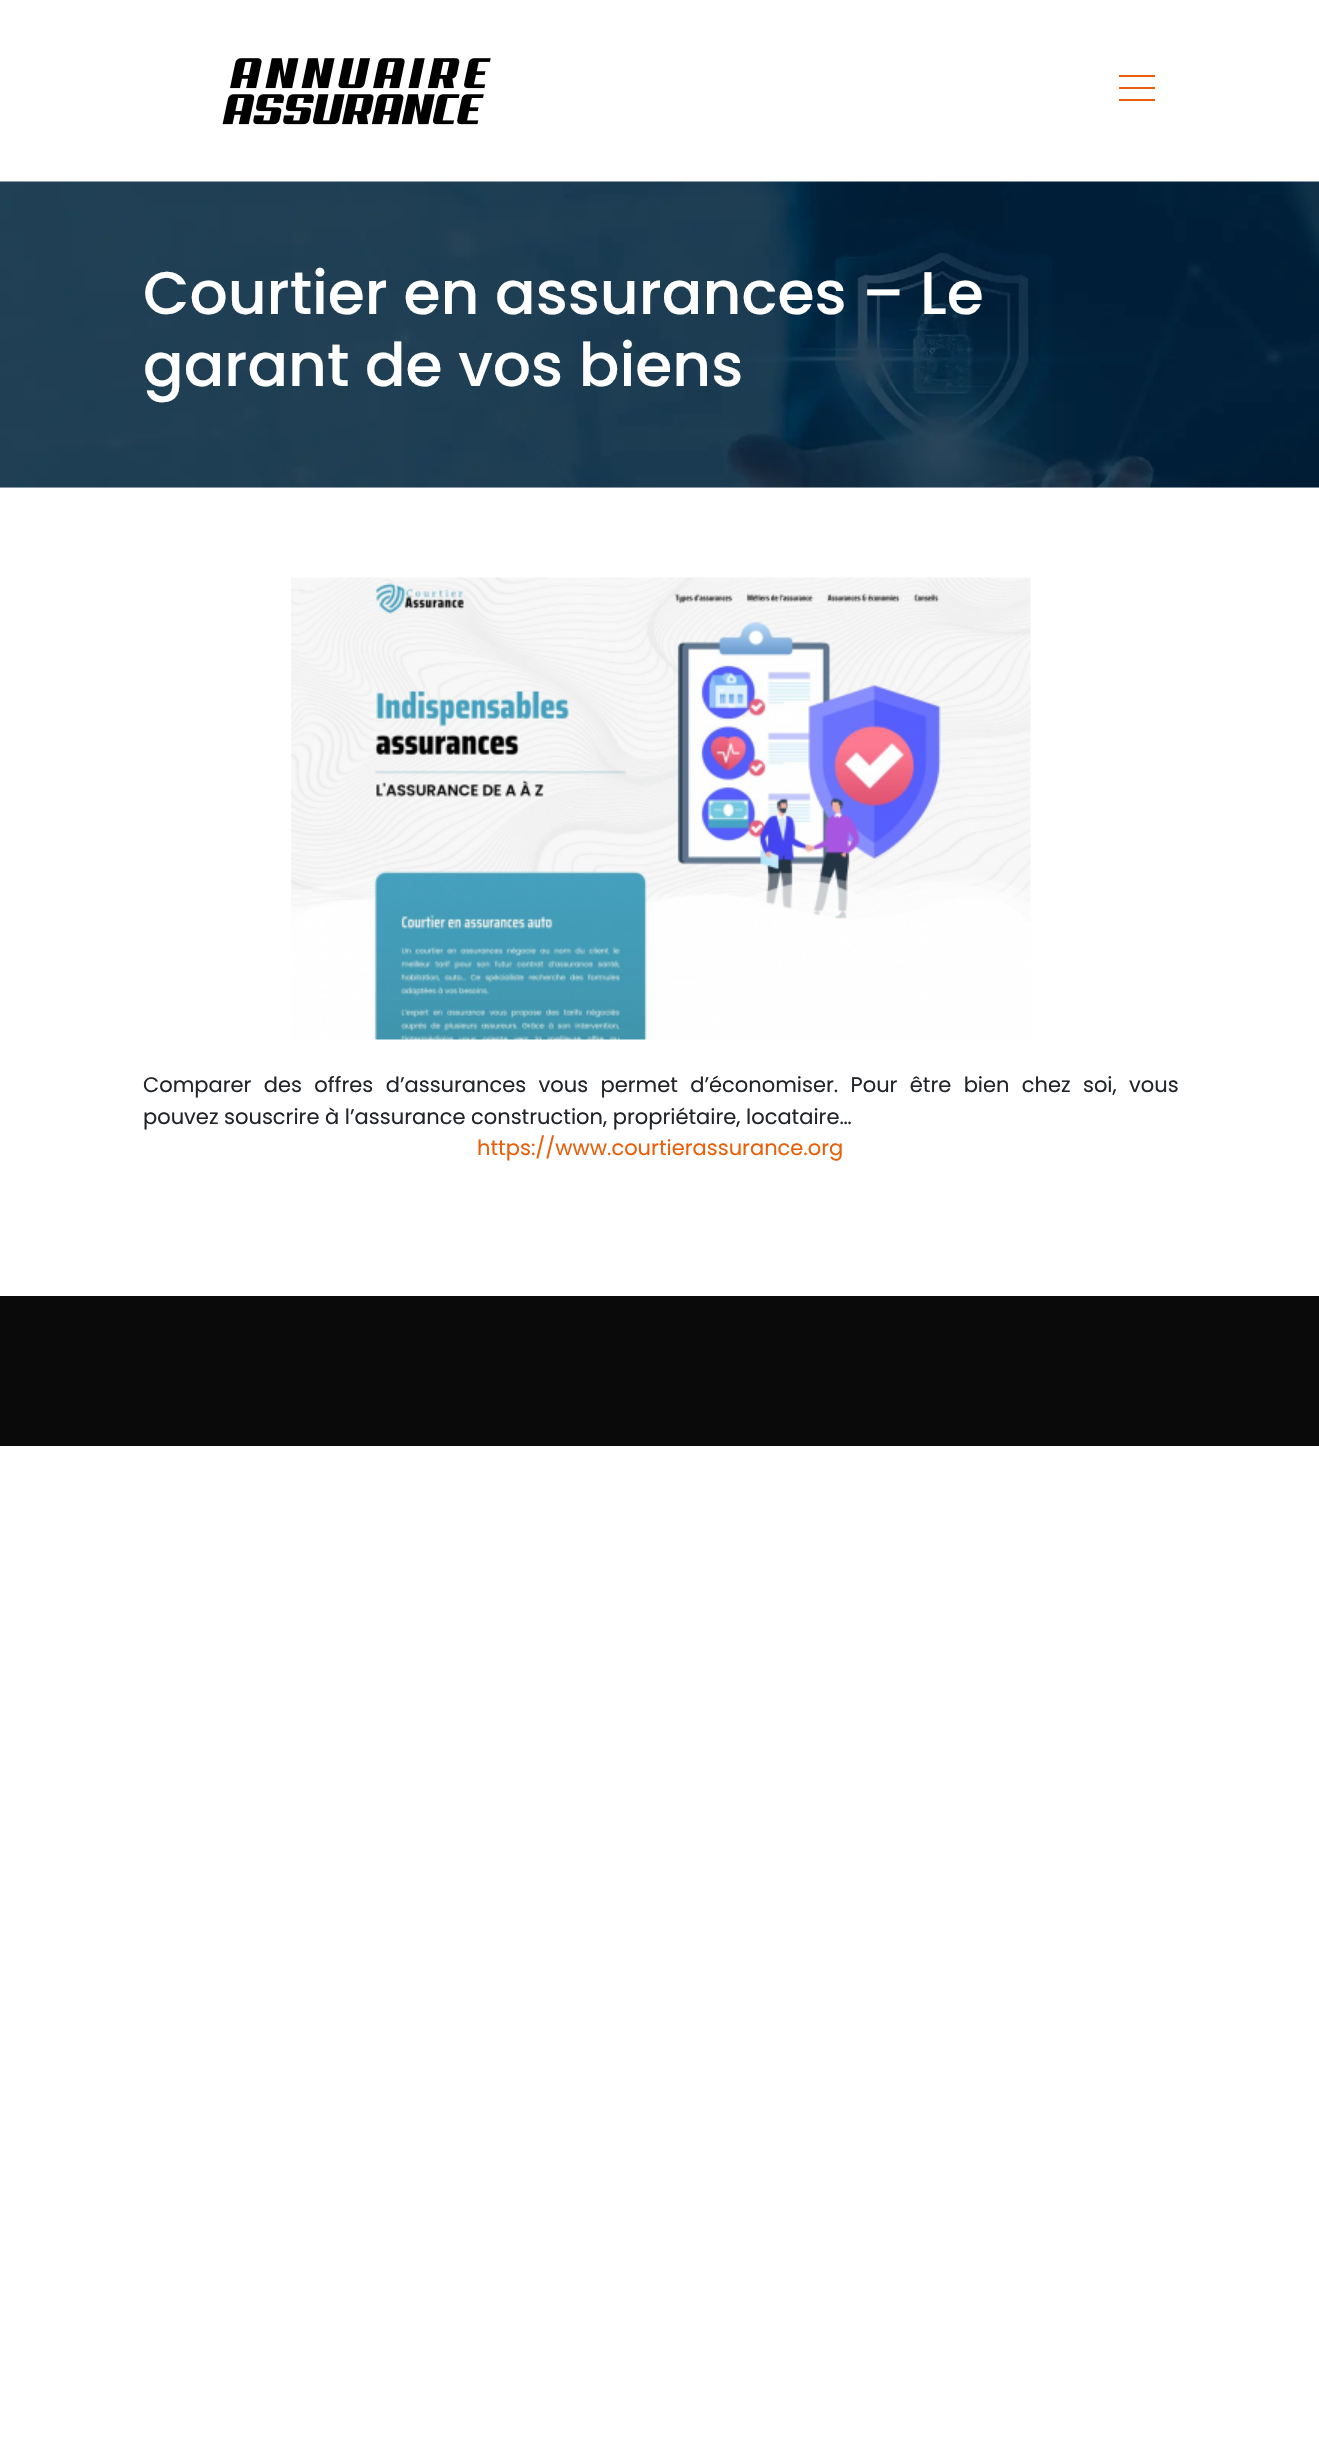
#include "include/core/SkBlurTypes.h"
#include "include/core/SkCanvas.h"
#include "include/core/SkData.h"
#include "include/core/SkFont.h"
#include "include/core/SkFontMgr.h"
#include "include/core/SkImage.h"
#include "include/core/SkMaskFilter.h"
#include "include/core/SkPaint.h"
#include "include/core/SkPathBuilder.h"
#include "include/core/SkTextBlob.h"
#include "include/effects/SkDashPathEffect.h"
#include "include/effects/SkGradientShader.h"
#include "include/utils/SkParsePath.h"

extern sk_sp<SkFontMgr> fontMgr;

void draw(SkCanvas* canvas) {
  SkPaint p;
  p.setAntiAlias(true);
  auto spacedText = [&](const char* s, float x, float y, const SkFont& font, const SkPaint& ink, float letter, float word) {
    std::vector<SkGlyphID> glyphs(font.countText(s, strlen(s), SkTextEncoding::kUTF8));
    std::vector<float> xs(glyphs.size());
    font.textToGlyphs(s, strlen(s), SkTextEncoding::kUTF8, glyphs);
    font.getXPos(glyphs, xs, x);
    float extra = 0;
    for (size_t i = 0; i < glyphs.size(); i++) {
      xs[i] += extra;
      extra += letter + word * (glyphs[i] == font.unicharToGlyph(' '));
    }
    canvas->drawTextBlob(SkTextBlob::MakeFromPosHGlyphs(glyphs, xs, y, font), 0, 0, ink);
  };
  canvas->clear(SK_ColorWHITE);
  canvas->save();
  canvas->clipPath(SkPathBuilder(SkPathFillType::kEvenOdd).moveTo(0, 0).lineTo(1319, 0).lineTo(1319, 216).lineTo(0, 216).close().moveTo(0, 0).lineTo(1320, 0).lineTo(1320, 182).lineTo(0, 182).close().detach(), true);
  p.setColor(SkColorSetARGB(26, 0, 0, 0));
  p.setMaskFilter(SkMaskFilter::MakeBlur(kNormal_SkBlurStyle, 10));
  canvas->drawRect(SkRect::MakeLTRB(0, 3, 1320, 185), p);
  p.setMaskFilter(nullptr);
  canvas->restore();
  canvas->drawImageRect(SkImages::DeferredFromEncodedData(SkData::MakeFromFileName("images/1.png")), SkRect::MakeLTRB(222, 58, 491, 125), SkSamplingOptions());
  p.setColor(SkColorSetRGB(233, 94, 9));
  canvas->drawRect(SkRect::MakeLTRB(1119, 75, 1155, 77), p);
  canvas->drawRect(SkRect::MakeLTRB(1119, 87, 1155, 89), p);
  canvas->drawRect(SkRect::MakeLTRB(1119, 99, 1155, 101), p);
  p.setColor(SkColorSetRGB(238, 238, 238));
  canvas->drawRect(SkRect::MakeLTRB(0, 487, 1319, 488), p);
  canvas->drawImageRect(SkImages::DeferredFromEncodedData(SkData::MakeFromFileName("images/2.png")), SkRect::MakeLTRB(0, 181, 1319, 488), SkSamplingOptions());
  canvas->drawImageRect(SkImages::DeferredFromEncodedData(SkData::MakeFromFileName("images/3.png")), SkRect::MakeLTRB(291, 577, 1031, 1040), SkSamplingOptions());
  p.setColor(SkColorSetRGB(10, 10, 10));
  canvas->drawRect(SkRect::MakeLTRB(0, 1296, 1319, 1446), p);
  SkFont font1(fontMgr->matchFamilyStyle("Poppins", SkFontStyle(500, SkFontStyle::kNormal_Width, SkFontStyle::kUpright_Slant)), 60);
  font1.setSubpixel(true);
  p.setColor(SK_ColorWHITE);
  canvas->drawString("Courtier en assurances – Le", 143, 314, font1, p);
  canvas->drawString("garant de vos biens", 143, 386, font1, p);
  SkFont font2(fontMgr->matchFamilyStyle("Poppins", SkFontStyle::Normal()), 21);
  font2.setSubpixel(true);
  p.setColor(SkColorSetRGB(33, 37, 41));
  spacedText("Comparer des offres d’assurances vous permet d’économiser. Pour être bien chez soi, vous", 143, 1092, font2, p, 0, 6.75f);
  canvas->drawString("pouvez souscrire à l’assurance construction, propriétaire, locataire…", 143, 1124, font2, p);
  p.setColor(SkColorSetRGB(233, 94, 9));
  canvas->drawString("https://www.courtierassurance.org", 477, 1155, font2, p);
}
